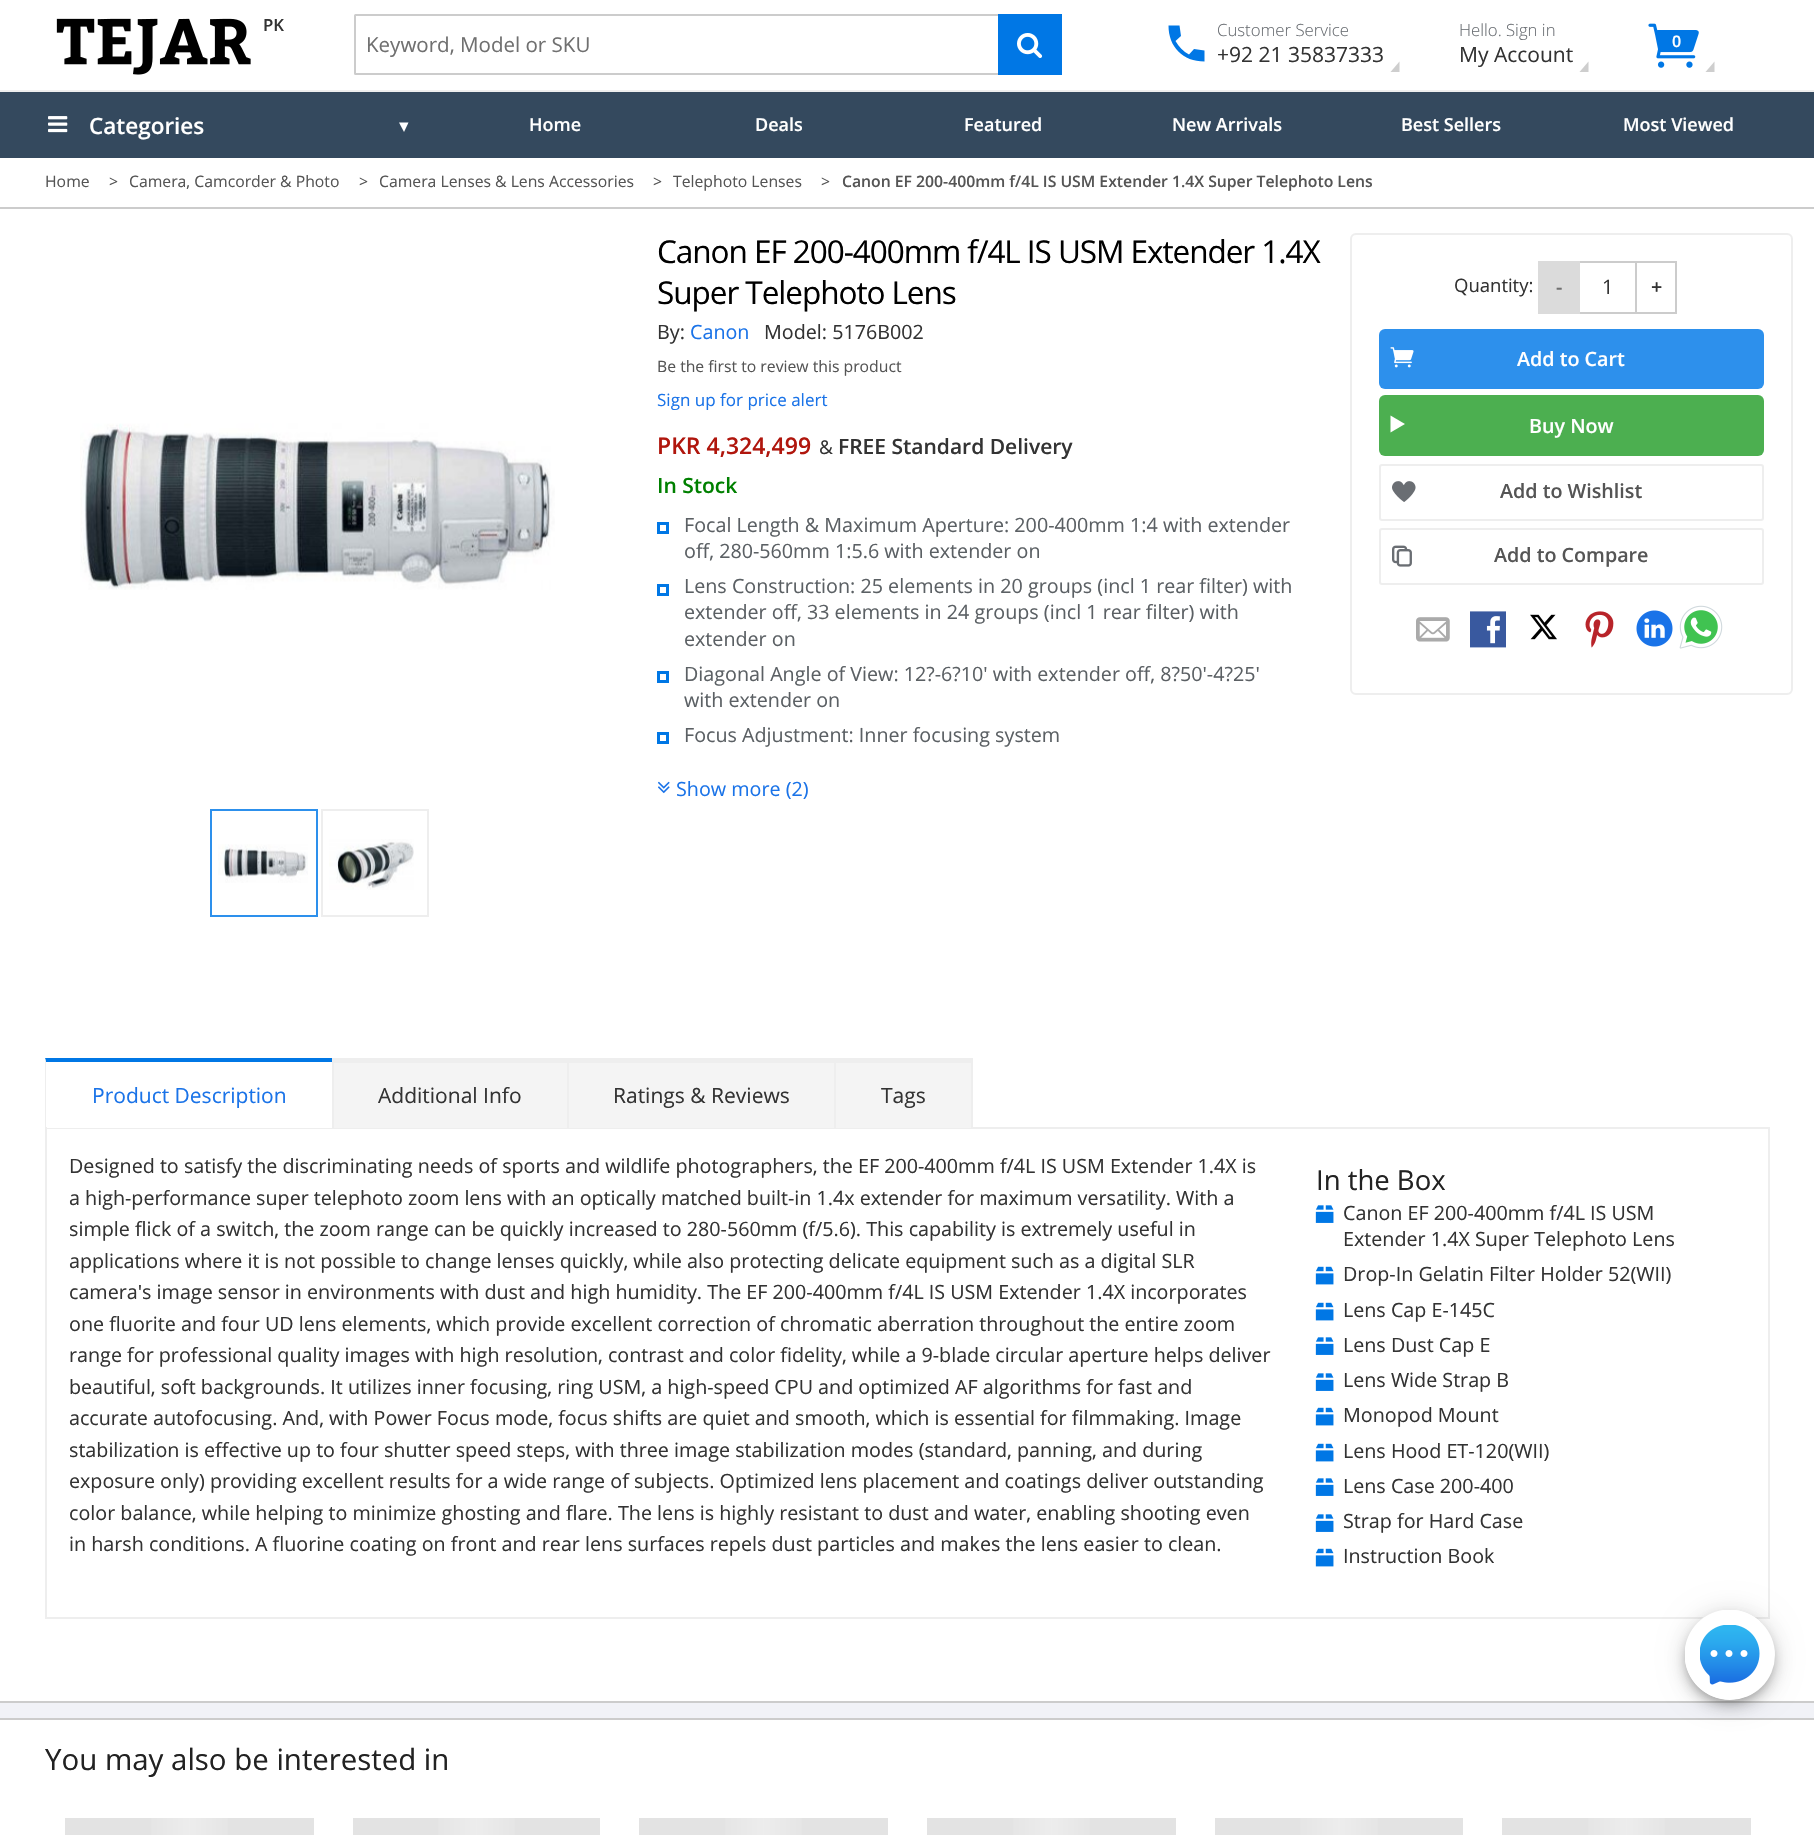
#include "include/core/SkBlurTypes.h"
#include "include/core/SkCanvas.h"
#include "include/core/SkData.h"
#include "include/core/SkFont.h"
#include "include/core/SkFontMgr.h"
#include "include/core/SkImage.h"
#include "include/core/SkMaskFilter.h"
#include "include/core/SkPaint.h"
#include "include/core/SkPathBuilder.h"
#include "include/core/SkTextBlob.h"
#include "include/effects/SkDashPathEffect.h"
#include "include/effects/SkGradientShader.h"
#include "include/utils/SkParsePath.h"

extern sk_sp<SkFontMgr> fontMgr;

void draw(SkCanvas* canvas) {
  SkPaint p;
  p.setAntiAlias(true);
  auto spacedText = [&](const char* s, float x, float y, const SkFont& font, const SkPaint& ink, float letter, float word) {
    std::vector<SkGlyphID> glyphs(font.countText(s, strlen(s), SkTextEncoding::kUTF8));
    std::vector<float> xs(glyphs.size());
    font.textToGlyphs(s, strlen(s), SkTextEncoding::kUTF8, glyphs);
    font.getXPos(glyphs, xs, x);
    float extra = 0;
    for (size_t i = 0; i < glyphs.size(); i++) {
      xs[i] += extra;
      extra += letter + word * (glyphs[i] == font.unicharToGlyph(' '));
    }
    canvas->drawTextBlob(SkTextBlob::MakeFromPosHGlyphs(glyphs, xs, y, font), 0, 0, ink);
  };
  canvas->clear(SkColorSetRGB(241, 242, 247));
  p.setColor(SK_ColorWHITE);
  canvas->drawRect(SkRect::MakeLTRB(0, 0, 1814, 90), p);
  p.setColor(SkColorSetRGB(238, 238, 238));
  canvas->drawRect(SkRect::MakeLTRB(0, 90, 1814, 92), p);
  canvas->drawImageRect(SkImages::DeferredFromEncodedData(SkData::MakeFromFileName("images/1.png")), SkRect::MakeLTRB(56, 18, 251, 75), SkSamplingOptions());
  p.setStyle(SkPaint::kStroke_Style);
  p.setStrokeWidth(2);
  p.setColor(SkColorSetRGB(204, 204, 204));
  canvas->drawRoundRect(SkRect::MakeLTRB(355, 15, 1061, 74), 0.5f, 0.5f, p);
  p.setStyle(SkPaint::kFill_Style);
  p.setColor(SkColorSetRGB(0, 119, 229));
  canvas->drawRect(SkRect::MakeLTRB(998, 14, 1062, 75), p);
  canvas->drawImageRect(SkImages::DeferredFromEncodedData(SkData::MakeFromFileName("images/2.png")), SkRect::MakeLTRB(1017, 33, 1043, 58), SkSamplingOptions());
  canvas->drawPath(SkPathBuilder().moveTo(1194, 49).lineTo(1189, 54.5f).cubicTo(1183.5f, 51.5f, 1178.5f, 46.5f, 1175.5f, 41).lineTo(1181, 36).lineTo(1179.5f, 25.5f).lineTo(1168.5f, 25.5f).cubicTo(1168.5f, 47, 1183, 61.5f, 1204.5f, 61.5f).lineTo(1204.5f, 50.5f).close().detach(), p);
  p.setColor(SkColorSetRGB(206, 206, 206));
  canvas->drawPath(SkPathBuilder().moveTo(1399.5f, 72).lineTo(1390.5f, 72).lineTo(1399.5f, 61.5f).close().detach(), p);
  canvas->drawPath(SkPathBuilder().moveTo(1588.5f, 72).lineTo(1579.5f, 72).lineTo(1588.5f, 61.5f).close().detach(), p);
  canvas->drawImageRect(SkImages::DeferredFromEncodedData(SkData::MakeFromFileName("images/3.png")), SkRect::MakeLTRB(1648, 23, 1699, 68), SkSamplingOptions());
  canvas->drawPath(SkPathBuilder().moveTo(1714.5f, 72).lineTo(1705.5f, 72).lineTo(1714.5f, 61.5f).close().detach(), p);
  p.setColor(SkColorSetRGB(52, 73, 94));
  canvas->drawRect(SkRect::MakeLTRB(0, 92, 1814, 158), p);
  canvas->drawImageRect(SkImages::DeferredFromEncodedData(SkData::MakeFromFileName("images/4.png")), SkRect::MakeLTRB(48, 116, 68, 133), SkSamplingOptions());
  p.setColor(SK_ColorWHITE);
  canvas->drawPath(SkPathBuilder().moveTo(404, 132).lineTo(399, 122.5f).lineTo(408.5f, 122.5f).close().detach(), p);
  canvas->drawRect(SkRect::MakeLTRB(0, 158, 1814, 207), p);
  p.setColor(SkColorSetRGB(204, 204, 204));
  canvas->drawRect(SkRect::MakeLTRB(0, 207, 1814, 209), p);
  p.setColor(SK_ColorWHITE);
  canvas->drawRect(SkRect::MakeLTRB(0, 209, 1814, 1701), p);
  p.setColor(SkColorSetRGB(204, 204, 204));
  canvas->drawRect(SkRect::MakeLTRB(0, 1701, 1814, 1703), p);
  canvas->drawImageRect(SkImages::DeferredFromEncodedData(SkData::MakeFromFileName("images/5.png")), SkRect::MakeLTRB(80, 423, 555, 590), SkSamplingOptions());
  p.setStyle(SkPaint::kStroke_Style);
  p.setColor(SkColorSetRGB(45, 144, 236));
  canvas->drawRect(SkRect::MakeLTRB(211, 810, 317, 916), p);
  canvas->drawImageRect(SkImages::DeferredFromEncodedData(SkData::MakeFromFileName("images/6.png")), SkRect::MakeLTRB(218, 844, 308, 883), SkSamplingOptions());
  p.setColor(SkColorSetRGB(238, 238, 238));
  canvas->drawRect(SkRect::MakeLTRB(322, 810, 428, 916), p);
  canvas->drawImageRect(SkImages::DeferredFromEncodedData(SkData::MakeFromFileName("images/7.png")), SkRect::MakeLTRB(329, 839, 414, 890), SkSamplingOptions());
  p.setStrokeWidth(3);
  p.setColor(SkColorSetRGB(0, 119, 229));
  canvas->drawRect(SkRect::MakeLTRB(658.5f, 523.5f, 667.5f, 532.5f), p);
  canvas->drawRect(SkRect::MakeLTRB(658.5f, 585.5f, 667.5f, 594.5f), p);
  canvas->drawRect(SkRect::MakeLTRB(658.5f, 672.5f, 667.5f, 681.5f), p);
  canvas->drawRect(SkRect::MakeLTRB(658.5f, 733.5f, 667.5f, 742.5f), p);
  canvas->drawImageRect(SkImages::DeferredFromEncodedData(SkData::MakeFromFileName("images/8.png")), SkRect::MakeLTRB(658, 781, 670, 794), SkSamplingOptions());
  p.setStrokeWidth(2);
  p.setColor(SkColorSetRGB(238, 238, 238));
  canvas->drawRoundRect(SkRect::MakeLTRB(1351, 234, 1792, 694), 5, 5, p);
  p.setStyle(SkPaint::kFill_Style);
  p.setColor(SkColorSetRGB(219, 219, 219));
  canvas->drawRect(SkRect::MakeLTRB(1538, 261, 1580, 314), p);
  p.setColor(SkColorSetRGB(204, 204, 204));
  canvas->drawRect(SkRect::MakeLTRB(1580, 261, 1635, 263), p);
  canvas->drawRect(SkRect::MakeLTRB(1580, 312, 1635, 314), p);
  p.setStyle(SkPaint::kStroke_Style);
  canvas->drawRect(SkRect::MakeLTRB(1636, 262, 1676, 313), p);
  p.setStyle(SkPaint::kFill_Style);
  p.setColor(SkColorSetRGB(45, 144, 236));
  canvas->drawRoundRect(SkRect::MakeLTRB(1379, 329, 1764, 389), 6, 6, p);
  canvas->drawImageRect(SkImages::DeferredFromEncodedData(SkData::MakeFromFileName("images/9.png")), SkRect::MakeLTRB(1390, 347, 1414, 368), SkSamplingOptions());
  p.setColor(SkColorSetRGB(76, 175, 80));
  canvas->drawRoundRect(SkRect::MakeLTRB(1379, 395, 1764, 456), 6, 6, p);
  p.setColor(SK_ColorWHITE);
  canvas->drawPath(SkPathBuilder().moveTo(1390.5f, 432.5f).lineTo(1390.5f, 415.5f).lineTo(1405, 424).close().detach(), p);
  p.setStyle(SkPaint::kStroke_Style);
  p.setColor(SkColorSetRGB(238, 238, 238));
  canvas->drawRoundRect(SkRect::MakeLTRB(1380, 465, 1763, 520), 2, 2, p);
  canvas->drawImageRect(SkImages::DeferredFromEncodedData(SkData::MakeFromFileName("images/10.png")), SkRect::MakeLTRB(1392, 481, 1416, 502), SkSamplingOptions());
  canvas->drawRoundRect(SkRect::MakeLTRB(1380, 529, 1763, 584), 2, 2, p);
  canvas->drawImageRect(SkImages::DeferredFromEncodedData(SkData::MakeFromFileName("images/11.png")), SkRect::MakeLTRB(1392, 545, 1412, 567), SkSamplingOptions());
  canvas->drawImageRect(SkImages::DeferredFromEncodedData(SkData::MakeFromFileName("images/12.png")), SkRect::MakeLTRB(1416, 617, 1450, 642), SkSamplingOptions());
  canvas->drawImageRect(SkImages::DeferredFromEncodedData(SkData::MakeFromFileName("images/13.png")), SkRect::MakeLTRB(1470, 611, 1506, 648), SkSamplingOptions());
  canvas->drawImageRect(SkImages::DeferredFromEncodedData(SkData::MakeFromFileName("images/14.png")), SkRect::MakeLTRB(1530, 614, 1557, 640), SkSamplingOptions());
  canvas->drawImageRect(SkImages::DeferredFromEncodedData(SkData::MakeFromFileName("images/15.png")), SkRect::MakeLTRB(1585, 611, 1614, 648), SkSamplingOptions());
  canvas->drawImageRect(SkImages::DeferredFromEncodedData(SkData::MakeFromFileName("images/16.png")), SkRect::MakeLTRB(1636, 610, 1673, 647), SkSamplingOptions());
  canvas->drawImageRect(SkImages::DeferredFromEncodedData(SkData::MakeFromFileName("images/17.png")), SkRect::MakeLTRB(1679, 605, 1723, 649), SkSamplingOptions());
  canvas->drawRect(SkRect::MakeLTRB(46, 1128, 1769, 1618), p);
  p.setStyle(SkPaint::kFill_Style);
  p.setColor(SK_ColorWHITE);
  canvas->drawRect(SkRect::MakeLTRB(47, 1127, 332, 1128), p);
  p.setColor(SkColorSetRGB(0, 119, 229));
  canvas->drawPath(SkPathBuilder().moveTo(45, 1058).lineTo(333, 1058).lineTo(332, 1062).lineTo(46, 1062).close().detach(), p);
  p.setColor(SkColorSetRGB(238, 238, 238));
  canvas->drawPath(SkPathBuilder().moveTo(45, 1128).lineTo(45, 1058).lineTo(46, 1062).lineTo(46, 1128).close().detach(), p);
  p.setColor(SkColorSetRGB(244, 244, 244));
  canvas->drawRect(SkRect::MakeLTRB(334, 1063, 567, 1128), p);
  p.setColor(SkColorSetRGB(238, 238, 238));
  canvas->drawRect(SkRect::MakeLTRB(332, 1058, 569, 1063), p);
  canvas->drawRect(SkRect::MakeLTRB(567, 1058, 569, 1128), p);
  canvas->drawRect(SkRect::MakeLTRB(332, 1058, 334, 1128), p);
  p.setColor(SkColorSetRGB(244, 244, 244));
  canvas->drawRect(SkRect::MakeLTRB(569, 1063, 834, 1128), p);
  p.setColor(SkColorSetRGB(238, 238, 238));
  canvas->drawRect(SkRect::MakeLTRB(567, 1058, 836, 1063), p);
  canvas->drawRect(SkRect::MakeLTRB(834, 1058, 836, 1128), p);
  p.setColor(SkColorSetRGB(244, 244, 244));
  canvas->drawRect(SkRect::MakeLTRB(836, 1063, 971, 1128), p);
  p.setColor(SkColorSetRGB(238, 238, 238));
  canvas->drawRect(SkRect::MakeLTRB(834, 1058, 972, 1063), p);
  canvas->drawRect(SkRect::MakeLTRB(971, 1058, 973, 1128), p);
  canvas->drawImageRect(SkImages::DeferredFromEncodedData(SkData::MakeFromFileName("images/18.png")), SkRect::MakeLTRB(1315, 1205, 1334, 1223), SkSamplingOptions());
  canvas->drawImageRect(SkImages::DeferredFromEncodedData(SkData::MakeFromFileName("images/19.png")), SkRect::MakeLTRB(1315, 1266, 1334, 1285), SkSamplingOptions());
  canvas->drawImageRect(SkImages::DeferredFromEncodedData(SkData::MakeFromFileName("images/19.png")), SkRect::MakeLTRB(1315, 1302, 1334, 1321), SkSamplingOptions());
  canvas->drawImageRect(SkImages::DeferredFromEncodedData(SkData::MakeFromFileName("images/18.png")), SkRect::MakeLTRB(1315, 1337, 1334, 1355), SkSamplingOptions());
  canvas->drawImageRect(SkImages::DeferredFromEncodedData(SkData::MakeFromFileName("images/18.png")), SkRect::MakeLTRB(1315, 1373, 1334, 1391), SkSamplingOptions());
  canvas->drawImageRect(SkImages::DeferredFromEncodedData(SkData::MakeFromFileName("images/19.png")), SkRect::MakeLTRB(1315, 1407, 1334, 1426), SkSamplingOptions());
  canvas->drawImageRect(SkImages::DeferredFromEncodedData(SkData::MakeFromFileName("images/19.png")), SkRect::MakeLTRB(1315, 1443, 1334, 1462), SkSamplingOptions());
  canvas->drawImageRect(SkImages::DeferredFromEncodedData(SkData::MakeFromFileName("images/18.png")), SkRect::MakeLTRB(1315, 1478, 1334, 1496), SkSamplingOptions());
  canvas->drawImageRect(SkImages::DeferredFromEncodedData(SkData::MakeFromFileName("images/18.png")), SkRect::MakeLTRB(1315, 1514, 1334, 1532), SkSamplingOptions());
  canvas->drawImageRect(SkImages::DeferredFromEncodedData(SkData::MakeFromFileName("images/19.png")), SkRect::MakeLTRB(1315, 1548, 1334, 1567), SkSamplingOptions());
  p.setColor(SK_ColorWHITE);
  canvas->drawRect(SkRect::MakeLTRB(0, 1720, 1814, 1835), p);
  p.setColor(SkColorSetRGB(204, 204, 204));
  canvas->drawRect(SkRect::MakeLTRB(0, 1718, 1814, 1720), p);
  p.setColor(SkColorSetRGB(227, 227, 227));
  canvas->drawRect(SkRect::MakeLTRB(65, 1818, 314, 1835), p);
  {
    const SkColor colors[] = {SkColorSetARGB(0, 255, 255, 255), SkColorSetARGB(89, 255, 255, 255), SkColorSetARGB(0, 255, 255, 255)};
    const float stops[] = {0.46f, 0.5f, 0.54f};
    const SkPoint ends[] = {{-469, 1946}, {848, 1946}};
    p.setShader(SkGradientShader::MakeLinear(ends, colors, stops, 3, SkTileMode::kClamp));
    p.setAlpha(255);
  }
  canvas->drawRect(SkRect::MakeLTRB(151, 1818, 228, 1835), p);
  p.setShader(nullptr);
  p.setColor(SkColorSetRGB(227, 227, 227));
  canvas->drawRect(SkRect::MakeLTRB(353, 1818, 600, 1835), p);
  {
    const SkColor colors[] = {SkColorSetARGB(0, 255, 255, 255), SkColorSetARGB(89, 255, 255, 255), SkColorSetARGB(0, 255, 255, 255)};
    const float stops[] = {0.46f, 0.5f, 0.54f};
    const SkPoint ends[] = {{-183, 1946}, {1136, 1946}};
    p.setShader(SkGradientShader::MakeLinear(ends, colors, stops, 3, SkTileMode::kClamp));
    p.setAlpha(255);
  }
  canvas->drawRect(SkRect::MakeLTRB(438, 1818, 515, 1835), p);
  p.setShader(nullptr);
  p.setColor(SkColorSetRGB(227, 227, 227));
  canvas->drawRect(SkRect::MakeLTRB(639, 1818, 888, 1835), p);
  {
    const SkColor colors[] = {SkColorSetARGB(0, 255, 255, 255), SkColorSetARGB(89, 255, 255, 255), SkColorSetARGB(0, 255, 255, 255)};
    const float stops[] = {0.46f, 0.5f, 0.54f};
    const SkPoint ends[] = {{105, 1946}, {1422, 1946}};
    p.setShader(SkGradientShader::MakeLinear(ends, colors, stops, 3, SkTileMode::kClamp));
    p.setAlpha(255);
  }
  canvas->drawRect(SkRect::MakeLTRB(725, 1818, 802, 1835), p);
  p.setShader(nullptr);
  p.setColor(SkColorSetRGB(227, 227, 227));
  canvas->drawRect(SkRect::MakeLTRB(927, 1818, 1176, 1835), p);
  {
    const SkColor colors[] = {SkColorSetARGB(0, 255, 255, 255), SkColorSetARGB(89, 255, 255, 255), SkColorSetARGB(0, 255, 255, 255)};
    const float stops[] = {0.46f, 0.5f, 0.54f};
    const SkPoint ends[] = {{393, 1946}, {1710, 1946}};
    p.setShader(SkGradientShader::MakeLinear(ends, colors, stops, 3, SkTileMode::kClamp));
    p.setAlpha(255);
  }
  canvas->drawRect(SkRect::MakeLTRB(1013, 1818, 1090, 1835), p);
  p.setShader(nullptr);
  p.setColor(SkColorSetRGB(227, 227, 227));
  canvas->drawRect(SkRect::MakeLTRB(1215, 1818, 1463, 1835), p);
  {
    const SkColor colors[] = {SkColorSetARGB(0, 255, 255, 255), SkColorSetARGB(89, 255, 255, 255), SkColorSetARGB(0, 255, 255, 255)};
    const float stops[] = {0.46f, 0.5f, 0.54f};
    const SkPoint ends[] = {{680, 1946}, {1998, 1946}};
    p.setShader(SkGradientShader::MakeLinear(ends, colors, stops, 3, SkTileMode::kClamp));
    p.setAlpha(255);
  }
  canvas->drawRect(SkRect::MakeLTRB(1300, 1818, 1378, 1835), p);
  p.setShader(nullptr);
  p.setColor(SkColorSetRGB(227, 227, 227));
  canvas->drawRect(SkRect::MakeLTRB(1502, 1818, 1751, 1835), p);
  {
    const SkColor colors[] = {SkColorSetARGB(0, 255, 255, 255), SkColorSetARGB(89, 255, 255, 255), SkColorSetARGB(0, 255, 255, 255)};
    const float stops[] = {0.46f, 0.5f, 0.54f};
    const SkPoint ends[] = {{968, 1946}, {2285, 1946}};
    p.setShader(SkGradientShader::MakeLinear(ends, colors, stops, 3, SkTileMode::kClamp));
    p.setAlpha(255);
  }
  canvas->drawRect(SkRect::MakeLTRB(1588, 1818, 1665, 1835), p);
  canvas->drawImageRect(SkImages::DeferredFromEncodedData(SkData::MakeFromFileName("images/21.png")), SkRect::MakeLTRB(1701, 1617, 1705, 1620), SkSamplingOptions());
  p.setShader(nullptr);
  p.setColor(SkColorSetARGB(51, 0, 0, 0));
  p.setMaskFilter(SkMaskFilter::MakeBlur(kNormal_SkBlurStyle, 4));
  canvas->drawRoundRect(SkRect::MakeLTRB(1686, 1616, 1773, 1703), 43.5f, 43.5f, p);
  p.setMaskFilter(nullptr);
  p.setColor(SkColorSetARGB(31, 0, 0, 0));
  p.setMaskFilter(SkMaskFilter::MakeBlur(kNormal_SkBlurStyle, 13.5f));
  canvas->drawRoundRect(SkRect::MakeLTRB(1685, 1611, 1775, 1701), 45, 45, p);
  p.setMaskFilter(nullptr);
  p.setColor(SkColorSetARGB(36, 0, 0, 0));
  p.setMaskFilter(SkMaskFilter::MakeBlur(kNormal_SkBlurStyle, 7.5f));
  canvas->drawRoundRect(SkRect::MakeLTRB(1685, 1619, 1775, 1709), 45, 45, p);
  p.setMaskFilter(nullptr);
  p.setColor(SK_ColorWHITE);
  canvas->drawCircle(1730, 1655, 45, p);
  canvas->drawImageRect(SkImages::DeferredFromEncodedData(SkData::MakeFromFileName("images/20.png")), SkRect::MakeLTRB(1685, 1610, 1760, 1700), SkSamplingOptions());
  SkFont font1(fontMgr->matchFamilyStyle("Open Sans", SkFontStyle(600, SkFontStyle::kNormal_Width, SkFontStyle::kUpright_Slant)), 16.75f);
  font1.setSubpixel(true);
  p.setColor(SkColorSetRGB(51, 51, 51));
  canvas->drawString("PK", 263, 31, font1, p);
  SkFont font2(fontMgr->matchFamilyStyle("Open Sans", SkFontStyle::Normal()), 20.5f);
  font2.setSubpixel(true);
  p.setColor(SkColorSetRGB(112, 112, 112));
  canvas->drawString("Keyword, Model or SKU", 366, 52, font2, p);
  SkFont font3(fontMgr->matchFamilyStyle("Open Sans", SkFontStyle(300, SkFontStyle::kNormal_Width, SkFontStyle::kUpright_Slant)), 16.75f);
  font3.setSubpixel(true);
  p.setColor(SkColorSetRGB(106, 110, 115));
  canvas->drawString("Customer Service", 1217, 36, font3, p);
  SkFont font4(fontMgr->matchFamilyStyle("Open Sans", SkFontStyle::Normal()), 21);
  font4.setSubpixel(true);
  p.setColor(SkColorSetRGB(51, 51, 51));
  canvas->drawString("+92 21 35837333", 1217, 62, font4, p);
  p.setColor(SkColorSetRGB(106, 110, 115));
  canvas->drawString("Hello. Sign in", 1459, 36, font3, p);
  p.setColor(SkColorSetRGB(51, 51, 51));
  canvas->drawString("My Account", 1459, 62, font4, p);
  SkFont font5(fontMgr->matchFamilyStyle("Open Sans", SkFontStyle(600, SkFontStyle::kNormal_Width, SkFontStyle::kUpright_Slant)), 16);
  font5.setSubpixel(true);
  p.setColor(SK_ColorWHITE);
  canvas->drawString("0", 1672, 47, font5, p);
  SkFont font6(fontMgr->matchFamilyStyle("Open Sans", SkFontStyle(600, SkFontStyle::kNormal_Width, SkFontStyle::kUpright_Slant)), 22.5f);
  font6.setSubpixel(true);
  canvas->drawString("Categories", 89, 134, font6, p);
  SkFont font7(fontMgr->matchFamilyStyle("Open Sans", SkFontStyle(600, SkFontStyle::kNormal_Width, SkFontStyle::kUpright_Slant)), 18);
  font7.setSubpixel(true);
  canvas->drawString("Home", 529, 131, font7, p);
  canvas->drawString("Deals", 755, 131, font7, p);
  canvas->drawString("Featured", 964, 131, font7, p);
  canvas->drawString("New Arrivals", 1172, 131, font7, p);
  canvas->drawString("Best Sellers", 1401, 131, font7, p);
  canvas->drawString("Most Viewed", 1623, 131, font7, p);
  SkFont font8(fontMgr->matchFamilyStyle("Open Sans", SkFontStyle::Normal()), 15.75f);
  font8.setSubpixel(true);
  p.setColor(SkColorSetRGB(85, 85, 85));
  canvas->drawString("Home", 45, 187, font8, p);
  canvas->drawString(">", 109, 187, font8, p);
  canvas->drawString("Camera, Camcorder & Photo", 129, 187, font8, p);
  canvas->drawString(">", 359, 187, font8, p);
  canvas->drawString("Camera Lenses & Lens Accessories", 379, 187, font8, p);
  canvas->drawString(">", 653, 187, font8, p);
  canvas->drawString("Telephoto Lenses", 673, 187, font8, p);
  canvas->drawString(">", 821, 187, font8, p);
  SkFont font9(fontMgr->matchFamilyStyle("Open Sans", SkFontStyle(600, SkFontStyle::kNormal_Width, SkFontStyle::kUpright_Slant)), 15.75f);
  font9.setSubpixel(true);
  canvas->drawString("Canon EF 200-400mm f/4L IS USM Extender 1.4X Super Telephoto Lens", 842, 187, font9, p);
  SkFont font10(fontMgr->matchFamilyStyle("Open Sans", SkFontStyle::Normal()), 31.5f);
  font10.setSubpixel(true);
  p.setColor(SK_ColorBLACK);
  spacedText("Canon EF 200-400mm f/4L IS USM Extender 1.4X", 657, 263, font10, p, -1.05f, 0);
  spacedText("Super Telephoto Lens", 657, 304, font10, p, -1.05f, 0);
  SkFont font11(fontMgr->matchFamilyStyle("Open Sans", SkFontStyle::Normal()), 19.7f);
  font11.setSubpixel(true);
  p.setColor(SkColorSetRGB(51, 51, 51));
  canvas->drawString("By:", 657, 339, font11, p);
  p.setColor(SkColorSetRGB(26, 115, 232));
  canvas->drawString("Canon", 690, 339, font11, p);
  p.setColor(SkColorSetRGB(51, 51, 51));
  canvas->drawString("Model: 5176B002", 764, 339, font11, p);
  p.setColor(SkColorSetRGB(85, 85, 85));
  canvas->drawString("Be the first to review this product", 657, 372, font8, p);
  SkFont font12(fontMgr->matchFamilyStyle("Open Sans", SkFontStyle::Normal()), 17);
  font12.setSubpixel(true);
  p.setColor(SkColorSetRGB(26, 115, 232));
  canvas->drawString("Sign up for price alert", 657, 406, font12, p);
  SkFont font13(fontMgr->matchFamilyStyle("Open Sans", SkFontStyle(600, SkFontStyle::kNormal_Width, SkFontStyle::kUpright_Slant)), 23);
  font13.setSubpixel(true);
  p.setColor(SkColorSetRGB(176, 22, 13));
  canvas->drawString("PKR 4,324,499", 657, 454, font13, p);
  SkFont font14(fontMgr->matchFamilyStyle("Open Sans", SkFontStyle::Normal()), 19);
  font14.setSubpixel(true);
  p.setColor(SkColorSetRGB(51, 51, 51));
  canvas->drawString("&", 819, 454, font14, p);
  SkFont font15(fontMgr->matchFamilyStyle("Open Sans", SkFontStyle(600, SkFontStyle::kNormal_Width, SkFontStyle::kUpright_Slant)), 21);
  font15.setSubpixel(true);
  canvas->drawString("FREE Standard Delivery", 838, 454, font15, p);
  p.setColor(SkColorSetRGB(0, 128, 0));
  canvas->drawString("In Stock", 657, 493, font15, p);
  p.setColor(SkColorSetRGB(91, 96, 100));
  canvas->drawString("Focal Length & Maximum Aperture: 200-400mm 1:4 with extender", 684, 532, font11, p);
  canvas->drawString("off, 280-560mm 1:5.6 with extender on", 684, 558, font11, p);
  canvas->drawString("Lens Construction: 25 elements in 20 groups (incl 1 rear filter) with", 684, 593, font11, p);
  canvas->drawString("extender off, 33 elements in 24 groups (incl 1 rear filter) with", 684, 619, font11, p);
  canvas->drawString("extender on", 684, 646, font11, p);
  canvas->drawString("Diagonal Angle of View: 12?-6?10' with extender off, 8?50'-4?25'", 684, 681, font11, p);
  canvas->drawString("with extender on", 684, 707, font11, p);
  canvas->drawString("Focus Adjustment: Inner focusing system", 684, 742, font11, p);
  p.setColor(SkColorSetRGB(26, 115, 232));
  canvas->drawString("Show more (2)", 676, 796, font11, p);
  SkFont font16(fontMgr->matchFamilyStyle("Open Sans", SkFontStyle::Normal()), 18.5f);
  font16.setSubpixel(true);
  p.setColor(SkColorSetRGB(51, 51, 51));
  canvas->drawString("Quantity:", 1454, 292, font16, p);
  SkFont font17(fontMgr->matchFamilyStyle("Open Sans", SkFontStyle(600, SkFontStyle::kNormal_Width, SkFontStyle::kUpright_Slant)), 19.7f);
  font17.setSubpixel(true);
  p.setColor(SkColorSetRGB(112, 112, 112));
  canvas->drawString("-", 1556, 294, font17, p);
  SkFont font18(fontMgr->matchFamilyStyle("Open Sans", SkFontStyle::Normal()), 20);
  font18.setSubpixel(true);
  p.setColor(SkColorSetRGB(51, 51, 51));
  canvas->drawString("1", 1602, 294, font18, p);
  canvas->drawString("+", 1651, 294, font17, p);
  p.setColor(SK_ColorWHITE);
  canvas->drawString("Add to Cart", 1517, 366, font17, p);
  canvas->drawString("Buy Now", 1529, 433, font17, p);
  p.setColor(SkColorSetRGB(85, 85, 85));
  canvas->drawString("Add to Wishlist", 1500, 498, font17, p);
  canvas->drawString("Add to Compare", 1494, 562, font17, p);
  p.setColor(SkColorSetRGB(26, 115, 232));
  canvas->drawString("Product Description", 92, 1103, font4, p);
  p.setColor(SkColorSetRGB(51, 51, 51));
  canvas->drawString("Additional Info", 378, 1103, font4, p);
  canvas->drawString("Ratings & Reviews", 613, 1103, font4, p);
  canvas->drawString("Tags", 881, 1103, font4, p);
  canvas->drawString("Designed to satisfy the discriminating needs of sports and wildlife photographers, the EF 200-400mm f/4L IS USM Extender 1.4X is", 69, 1173, font11, p);
  canvas->drawString("a high-performance super telephoto zoom lens with an optically matched built-in 1.4x extender for maximum versatility. With a", 69, 1205, font11, p);
  canvas->drawString("simple flick of a switch, the zoom range can be quickly increased to 280-560mm (f/5.6). This capability is extremely useful in", 69, 1236, font11, p);
  canvas->drawString("applications where it is not possible to change lenses quickly, while also protecting delicate equipment such as a digital SLR", 69, 1268, font11, p);
  canvas->drawString("camera's image sensor in environments with dust and high humidity. The EF 200-400mm f/4L IS USM Extender 1.4X incorporates", 69, 1299, font11, p);
  canvas->drawString("one fluorite and four UD lens elements, which provide excellent correction of chromatic aberration throughout the entire zoom", 69, 1331, font11, p);
  canvas->drawString("range for professional quality images with high resolution, contrast and color fidelity, while a 9-blade circular aperture helps deliver", 69, 1362, font11, p);
  canvas->drawString("beautiful, soft backgrounds. It utilizes inner focusing, ring USM, a high-speed CPU and optimized AF algorithms for fast and", 69, 1394, font11, p);
  canvas->drawString("accurate autofocusing. And, with Power Focus mode, focus shifts are quiet and smooth, which is essential for filmmaking. Image", 69, 1425, font11, p);
  canvas->drawString("stabilization is effective up to four shutter speed steps, with three image stabilization modes (standard, panning, and during", 69, 1457, font11, p);
  canvas->drawString("exposure only) providing excellent results for a wide range of subjects. Optimized lens placement and coatings deliver outstanding", 69, 1488, font11, p);
  canvas->drawString("color balance, while helping to minimize ghosting and flare. The lens is highly resistant to dust and water, enabling shooting even", 69, 1520, font11, p);
  canvas->drawString("in harsh conditions. A fluorine coating on front and rear lens surfaces repels dust particles and makes the lens easier to clean.", 69, 1551, font11, p);
  SkFont font19(fontMgr->matchFamilyStyle("Open Sans", SkFontStyle::Normal()), 27.5f);
  font19.setSubpixel(true);
  p.setColor(SkColorSetRGB(34, 34, 34));
  canvas->drawString("In the Box", 1316, 1190, font19, p);
  p.setColor(SkColorSetRGB(51, 51, 51));
  canvas->drawString("Canon EF 200-400mm f/4L IS USM", 1343, 1220, font11, p);
  canvas->drawString("Extender 1.4X Super Telephoto Lens", 1343, 1246, font11, p);
  canvas->drawString("Drop-In Gelatin Filter Holder 52(WII)", 1343, 1281, font11, p);
  canvas->drawString("Lens Cap E-145C", 1343, 1317, font11, p);
  canvas->drawString("Lens Dust Cap E", 1343, 1352, font11, p);
  canvas->drawString("Lens Wide Strap B", 1343, 1387, font11, p);
  canvas->drawString("Monopod Mount", 1343, 1422, font11, p);
  canvas->drawString("Lens Hood ET-120(WII)", 1343, 1458, font11, p);
  canvas->drawString("Lens Case 200-400", 1343, 1493, font11, p);
  canvas->drawString("Strap for Hard Case", 1343, 1528, font11, p);
  canvas->drawString("Instruction Book", 1343, 1563, font11, p);
  SkFont font20(fontMgr->matchFamilyStyle("Open Sans", SkFontStyle::Normal()), 29.4f);
  font20.setSubpixel(true);
  p.setColor(SkColorSetRGB(34, 34, 34));
  canvas->drawString("You may also be interested in", 45, 1770, font20, p);
}
